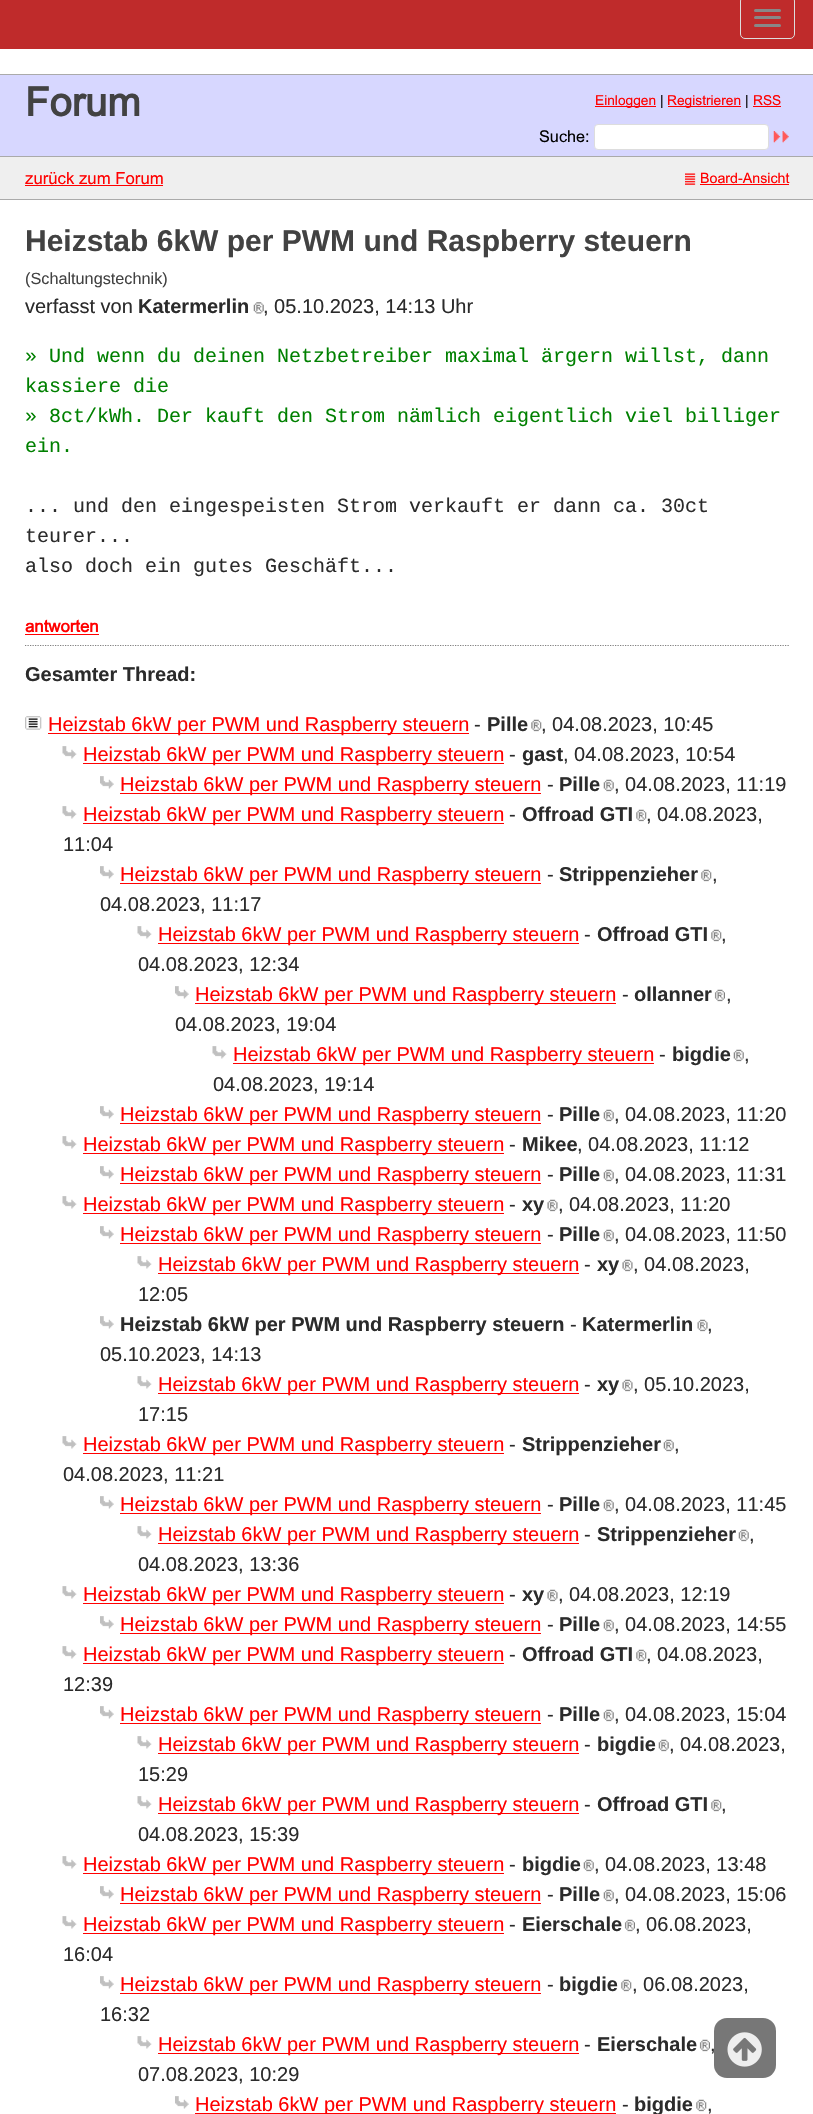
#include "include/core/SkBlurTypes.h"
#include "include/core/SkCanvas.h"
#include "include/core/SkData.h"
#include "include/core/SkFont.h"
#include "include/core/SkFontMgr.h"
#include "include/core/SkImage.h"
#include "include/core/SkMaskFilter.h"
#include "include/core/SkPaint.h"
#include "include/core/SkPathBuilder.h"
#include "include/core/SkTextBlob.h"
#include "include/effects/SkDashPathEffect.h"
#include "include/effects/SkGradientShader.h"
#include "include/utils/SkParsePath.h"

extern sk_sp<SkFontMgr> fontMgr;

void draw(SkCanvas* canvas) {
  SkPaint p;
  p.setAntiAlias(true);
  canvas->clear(SK_ColorWHITE);
  p.setColor(SkColorSetRGB(191, 43, 43));
  canvas->drawRect(SkRect::MakeLTRB(0, 0, 813, 49), p);
  p.setStyle(SkPaint::kStroke_Style);
  p.setStrokeWidth(1);
  p.setColor(SkColorSetRGB(221, 221, 221));
  canvas->drawRoundRect(SkRect::MakeLTRB(740.5f, -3.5f, 794.5f, 38.5f), 4.5f, 4.5f, p);
  p.setStyle(SkPaint::kFill_Style);
  p.setColor(SkColorSetRGB(136, 136, 136));
  canvas->drawRoundRect(SkRect::MakeLTRB(754, 9, 781, 12), 1.5f, 1.5f, p);
  canvas->drawRoundRect(SkRect::MakeLTRB(754, 16, 781, 19), 1.5f, 1.5f, p);
  canvas->drawRoundRect(SkRect::MakeLTRB(754, 24, 781, 27), 1.5f, 1.5f, p);
  p.setColor(SkColorSetRGB(170, 170, 170));
  canvas->drawRect(SkRect::MakeLTRB(0, 74, 813, 75), p);
  p.setColor(SkColorSetRGB(215, 215, 255));
  canvas->drawRect(SkRect::MakeLTRB(0, 75, 813, 156), p);
  p.setColor(SkColorSetRGB(255, 0, 0));
  canvas->drawRect(SkRect::MakeLTRB(595, 106, 656, 107), p);
  canvas->drawRect(SkRect::MakeLTRB(668, 106, 741, 107), p);
  canvas->drawRect(SkRect::MakeLTRB(753, 106, 781, 107), p);
  p.setColor(SK_ColorWHITE);
  canvas->drawRoundRect(SkRect::MakeLTRB(594.5f, 124.5f, 768.5f, 149.5f), 3.5f, 3.5f, p);
  p.setStyle(SkPaint::kStroke_Style);
  p.setColor(SkColorSetRGB(221, 221, 221));
  canvas->drawRoundRect(SkRect::MakeLTRB(594.5f, 124.5f, 768.5f, 149.5f), 3.5f, 3.5f, p);
  canvas->drawImageRect(SkImages::DeferredFromEncodedData(SkData::MakeFromFileName("images/1.png")), SkRect::MakeLTRB(773, 131, 789, 143), SkSamplingOptions());
  p.setStyle(SkPaint::kFill_Style);
  p.setColor(SkColorSetRGB(239, 239, 239));
  canvas->drawRect(SkRect::MakeLTRB(0, 157, 813, 199), p);
  p.setColor(SkColorSetRGB(170, 170, 170));
  canvas->drawRect(SkRect::MakeLTRB(0, 156, 813, 157), p);
  p.setColor(SkColorSetRGB(255, 0, 0));
  canvas->drawRect(SkRect::MakeLTRB(25, 185, 163, 186), p);
  canvas->drawImageRect(SkImages::DeferredFromEncodedData(SkData::MakeFromFileName("images/2.png")), SkRect::MakeLTRB(685, 173, 696, 185), SkSamplingOptions());
  canvas->drawRect(SkRect::MakeLTRB(700, 184, 789, 185), p);
  p.setColor(SkColorSetRGB(170, 170, 170));
  canvas->drawRect(SkRect::MakeLTRB(0, 199, 813, 200), p);
  canvas->drawImageRect(SkImages::DeferredFromEncodedData(SkData::MakeFromFileName("images/3.png")), SkRect::MakeLTRB(253, 302, 264, 314), SkSamplingOptions());
  p.setColor(SkColorSetRGB(255, 0, 0));
  canvas->drawRect(SkRect::MakeLTRB(25, 634, 99, 635), p);
  p.setStyle(SkPaint::kStroke_Style);
  p.setStrokeWidth(1.2f);
  p.setColor(SkColorSetRGB(128, 128, 128));
  p.setPathEffect(SkDashPathEffect::Make({{1.25f, 1.25f}}, 0));
  canvas->drawPath(SkPathBuilder().moveTo(25, 645.5f).lineTo(789, 645.5f).detach(), p);
  p.setPathEffect(nullptr);
  canvas->drawImageRect(SkImages::DeferredFromEncodedData(SkData::MakeFromFileName("images/4.png")), SkRect::MakeLTRB(25, 716, 42, 730), SkSamplingOptions());
  p.setStyle(SkPaint::kFill_Style);
  p.setColor(SkColorSetRGB(255, 0, 0));
  canvas->drawRect(SkRect::MakeLTRB(48, 733, 469, 734), p);
  canvas->drawImageRect(SkImages::DeferredFromEncodedData(SkData::MakeFromFileName("images/5.png")), SkRect::MakeLTRB(531, 719, 542, 732), SkSamplingOptions());
  canvas->drawImageRect(SkImages::DeferredFromEncodedData(SkData::MakeFromFileName("images/6.png")), SkRect::MakeLTRB(62, 746, 77, 759), SkSamplingOptions());
  canvas->drawRect(SkRect::MakeLTRB(83, 763, 504, 764), p);
  canvas->drawImageRect(SkImages::DeferredFromEncodedData(SkData::MakeFromFileName("images/7.png")), SkRect::MakeLTRB(100, 776, 114, 789), SkSamplingOptions());
  canvas->drawRect(SkRect::MakeLTRB(120, 793, 541, 794), p);
  canvas->drawImageRect(SkImages::DeferredFromEncodedData(SkData::MakeFromFileName("images/8.png")), SkRect::MakeLTRB(603, 779, 614, 792), SkSamplingOptions());
  canvas->drawImageRect(SkImages::DeferredFromEncodedData(SkData::MakeFromFileName("images/6.png")), SkRect::MakeLTRB(62, 806, 77, 819), SkSamplingOptions());
  canvas->drawRect(SkRect::MakeLTRB(83, 823, 504, 824), p);
  canvas->drawImageRect(SkImages::DeferredFromEncodedData(SkData::MakeFromFileName("images/9.png")), SkRect::MakeLTRB(636, 809, 647, 822), SkSamplingOptions());
  canvas->drawImageRect(SkImages::DeferredFromEncodedData(SkData::MakeFromFileName("images/7.png")), SkRect::MakeLTRB(100, 866, 114, 879), SkSamplingOptions());
  canvas->drawRect(SkRect::MakeLTRB(120, 883, 541, 884), p);
  canvas->drawImageRect(SkImages::DeferredFromEncodedData(SkData::MakeFromFileName("images/10.png")), SkRect::MakeLTRB(701, 869, 712, 882), SkSamplingOptions());
  canvas->drawImageRect(SkImages::DeferredFromEncodedData(SkData::MakeFromFileName("images/11.png")), SkRect::MakeLTRB(137, 926, 152, 939), SkSamplingOptions());
  canvas->drawRect(SkRect::MakeLTRB(158, 943, 579, 944), p);
  canvas->drawImageRect(SkImages::DeferredFromEncodedData(SkData::MakeFromFileName("images/10.png")), SkRect::MakeLTRB(711, 929, 722, 942), SkSamplingOptions());
  canvas->drawImageRect(SkImages::DeferredFromEncodedData(SkData::MakeFromFileName("images/7.png")), SkRect::MakeLTRB(175, 986, 189, 999), SkSamplingOptions());
  canvas->drawRect(SkRect::MakeLTRB(195, 1003, 616, 1004), p);
  canvas->drawImageRect(SkImages::DeferredFromEncodedData(SkData::MakeFromFileName("images/12.png")), SkRect::MakeLTRB(714, 989, 725, 1002), SkSamplingOptions());
  canvas->drawImageRect(SkImages::DeferredFromEncodedData(SkData::MakeFromFileName("images/11.png")), SkRect::MakeLTRB(212, 1046, 227, 1059), SkSamplingOptions());
  canvas->drawRect(SkRect::MakeLTRB(233, 1063, 654, 1064), p);
  canvas->drawImageRect(SkImages::DeferredFromEncodedData(SkData::MakeFromFileName("images/13.png")), SkRect::MakeLTRB(733, 1049, 744, 1062), SkSamplingOptions());
  canvas->drawImageRect(SkImages::DeferredFromEncodedData(SkData::MakeFromFileName("images/7.png")), SkRect::MakeLTRB(100, 1106, 114, 1119), SkSamplingOptions());
  canvas->drawRect(SkRect::MakeLTRB(120, 1123, 541, 1124), p);
  canvas->drawImageRect(SkImages::DeferredFromEncodedData(SkData::MakeFromFileName("images/8.png")), SkRect::MakeLTRB(603, 1109, 614, 1122), SkSamplingOptions());
  canvas->drawImageRect(SkImages::DeferredFromEncodedData(SkData::MakeFromFileName("images/6.png")), SkRect::MakeLTRB(62, 1136, 77, 1149), SkSamplingOptions());
  canvas->drawRect(SkRect::MakeLTRB(83, 1153, 504, 1154), p);
  canvas->drawImageRect(SkImages::DeferredFromEncodedData(SkData::MakeFromFileName("images/7.png")), SkRect::MakeLTRB(100, 1166, 114, 1179), SkSamplingOptions());
  canvas->drawRect(SkRect::MakeLTRB(120, 1183, 541, 1184), p);
  canvas->drawImageRect(SkImages::DeferredFromEncodedData(SkData::MakeFromFileName("images/8.png")), SkRect::MakeLTRB(603, 1169, 614, 1182), SkSamplingOptions());
  canvas->drawImageRect(SkImages::DeferredFromEncodedData(SkData::MakeFromFileName("images/6.png")), SkRect::MakeLTRB(62, 1196, 77, 1209), SkSamplingOptions());
  canvas->drawRect(SkRect::MakeLTRB(83, 1213, 504, 1214), p);
  canvas->drawImageRect(SkImages::DeferredFromEncodedData(SkData::MakeFromFileName("images/14.png")), SkRect::MakeLTRB(547, 1199, 558, 1212), SkSamplingOptions());
  canvas->drawImageRect(SkImages::DeferredFromEncodedData(SkData::MakeFromFileName("images/7.png")), SkRect::MakeLTRB(100, 1226, 114, 1239), SkSamplingOptions());
  canvas->drawRect(SkRect::MakeLTRB(120, 1243, 541, 1244), p);
  canvas->drawImageRect(SkImages::DeferredFromEncodedData(SkData::MakeFromFileName("images/8.png")), SkRect::MakeLTRB(603, 1229, 614, 1242), SkSamplingOptions());
  canvas->drawImageRect(SkImages::DeferredFromEncodedData(SkData::MakeFromFileName("images/11.png")), SkRect::MakeLTRB(137, 1256, 152, 1269), SkSamplingOptions());
  canvas->drawRect(SkRect::MakeLTRB(158, 1273, 579, 1274), p);
  canvas->drawImageRect(SkImages::DeferredFromEncodedData(SkData::MakeFromFileName("images/14.png")), SkRect::MakeLTRB(622, 1259, 633, 1272), SkSamplingOptions());
  canvas->drawImageRect(SkImages::DeferredFromEncodedData(SkData::MakeFromFileName("images/7.png")), SkRect::MakeLTRB(100, 1316, 114, 1329), SkSamplingOptions());
  canvas->drawImageRect(SkImages::DeferredFromEncodedData(SkData::MakeFromFileName("images/15.png")), SkRect::MakeLTRB(697, 1319, 708, 1332), SkSamplingOptions());
  canvas->drawImageRect(SkImages::DeferredFromEncodedData(SkData::MakeFromFileName("images/11.png")), SkRect::MakeLTRB(137, 1376, 152, 1389), SkSamplingOptions());
  canvas->drawRect(SkRect::MakeLTRB(158, 1393, 579, 1394), p);
  canvas->drawImageRect(SkImages::DeferredFromEncodedData(SkData::MakeFromFileName("images/14.png")), SkRect::MakeLTRB(622, 1379, 633, 1392), SkSamplingOptions());
  canvas->drawImageRect(SkImages::DeferredFromEncodedData(SkData::MakeFromFileName("images/6.png")), SkRect::MakeLTRB(62, 1436, 77, 1449), SkSamplingOptions());
  canvas->drawRect(SkRect::MakeLTRB(83, 1453, 504, 1454), p);
  canvas->drawImageRect(SkImages::DeferredFromEncodedData(SkData::MakeFromFileName("images/8.png")), SkRect::MakeLTRB(663, 1439, 674, 1452), SkSamplingOptions());
  canvas->drawImageRect(SkImages::DeferredFromEncodedData(SkData::MakeFromFileName("images/7.png")), SkRect::MakeLTRB(100, 1496, 114, 1509), SkSamplingOptions());
  canvas->drawRect(SkRect::MakeLTRB(120, 1513, 541, 1514), p);
  canvas->drawImageRect(SkImages::DeferredFromEncodedData(SkData::MakeFromFileName("images/8.png")), SkRect::MakeLTRB(603, 1499, 614, 1512), SkSamplingOptions());
  canvas->drawImageRect(SkImages::DeferredFromEncodedData(SkData::MakeFromFileName("images/11.png")), SkRect::MakeLTRB(137, 1526, 152, 1539), SkSamplingOptions());
  canvas->drawRect(SkRect::MakeLTRB(158, 1543, 579, 1544), p);
  canvas->drawImageRect(SkImages::DeferredFromEncodedData(SkData::MakeFromFileName("images/13.png")), SkRect::MakeLTRB(738, 1529, 749, 1542), SkSamplingOptions());
  canvas->drawImageRect(SkImages::DeferredFromEncodedData(SkData::MakeFromFileName("images/6.png")), SkRect::MakeLTRB(62, 1586, 77, 1599), SkSamplingOptions());
  canvas->drawRect(SkRect::MakeLTRB(83, 1603, 504, 1604), p);
  canvas->drawImageRect(SkImages::DeferredFromEncodedData(SkData::MakeFromFileName("images/14.png")), SkRect::MakeLTRB(547, 1589, 558, 1602), SkSamplingOptions());
  canvas->drawImageRect(SkImages::DeferredFromEncodedData(SkData::MakeFromFileName("images/7.png")), SkRect::MakeLTRB(100, 1616, 114, 1629), SkSamplingOptions());
  canvas->drawRect(SkRect::MakeLTRB(120, 1633, 541, 1634), p);
  canvas->drawImageRect(SkImages::DeferredFromEncodedData(SkData::MakeFromFileName("images/8.png")), SkRect::MakeLTRB(603, 1619, 614, 1632), SkSamplingOptions());
  canvas->drawImageRect(SkImages::DeferredFromEncodedData(SkData::MakeFromFileName("images/16.png")), SkRect::MakeLTRB(62, 1646, 77, 1659), SkSamplingOptions());
  canvas->drawRect(SkRect::MakeLTRB(83, 1663, 504, 1664), p);
  canvas->drawImageRect(SkImages::DeferredFromEncodedData(SkData::MakeFromFileName("images/10.png")), SkRect::MakeLTRB(636, 1649, 647, 1662), SkSamplingOptions());
  canvas->drawImageRect(SkImages::DeferredFromEncodedData(SkData::MakeFromFileName("images/7.png")), SkRect::MakeLTRB(100, 1706, 114, 1719), SkSamplingOptions());
  canvas->drawRect(SkRect::MakeLTRB(120, 1723, 541, 1724), p);
  canvas->drawImageRect(SkImages::DeferredFromEncodedData(SkData::MakeFromFileName("images/8.png")), SkRect::MakeLTRB(603, 1709, 614, 1722), SkSamplingOptions());
  canvas->drawImageRect(SkImages::DeferredFromEncodedData(SkData::MakeFromFileName("images/11.png")), SkRect::MakeLTRB(137, 1736, 152, 1749), SkSamplingOptions());
  canvas->drawRect(SkRect::MakeLTRB(158, 1753, 579, 1754), p);
  canvas->drawImageRect(SkImages::DeferredFromEncodedData(SkData::MakeFromFileName("images/8.png")), SkRect::MakeLTRB(658, 1739, 669, 1752), SkSamplingOptions());
  canvas->drawImageRect(SkImages::DeferredFromEncodedData(SkData::MakeFromFileName("images/11.png")), SkRect::MakeLTRB(137, 1796, 152, 1809), SkSamplingOptions());
  canvas->drawRect(SkRect::MakeLTRB(158, 1813, 579, 1814), p);
  canvas->drawImageRect(SkImages::DeferredFromEncodedData(SkData::MakeFromFileName("images/10.png")), SkRect::MakeLTRB(711, 1799, 722, 1812), SkSamplingOptions());
  canvas->drawImageRect(SkImages::DeferredFromEncodedData(SkData::MakeFromFileName("images/6.png")), SkRect::MakeLTRB(62, 1856, 77, 1869), SkSamplingOptions());
  canvas->drawRect(SkRect::MakeLTRB(83, 1873, 504, 1874), p);
  canvas->drawImageRect(SkImages::DeferredFromEncodedData(SkData::MakeFromFileName("images/13.png")), SkRect::MakeLTRB(583, 1859, 594, 1872), SkSamplingOptions());
  canvas->drawImageRect(SkImages::DeferredFromEncodedData(SkData::MakeFromFileName("images/7.png")), SkRect::MakeLTRB(100, 1886, 114, 1899), SkSamplingOptions());
  canvas->drawRect(SkRect::MakeLTRB(120, 1903, 541, 1904), p);
  canvas->drawImageRect(SkImages::DeferredFromEncodedData(SkData::MakeFromFileName("images/8.png")), SkRect::MakeLTRB(603, 1889, 614, 1902), SkSamplingOptions());
  canvas->drawImageRect(SkImages::DeferredFromEncodedData(SkData::MakeFromFileName("images/6.png")), SkRect::MakeLTRB(62, 1916, 77, 1929), SkSamplingOptions());
  canvas->drawRect(SkRect::MakeLTRB(83, 1933, 504, 1934), p);
  canvas->drawImageRect(SkImages::DeferredFromEncodedData(SkData::MakeFromFileName("images/12.png")), SkRect::MakeLTRB(624, 1919, 635, 1932), SkSamplingOptions());
  canvas->drawImageRect(SkImages::DeferredFromEncodedData(SkData::MakeFromFileName("images/7.png")), SkRect::MakeLTRB(100, 1976, 114, 1989), SkSamplingOptions());
  canvas->drawRect(SkRect::MakeLTRB(120, 1993, 541, 1994), p);
  canvas->drawImageRect(SkImages::DeferredFromEncodedData(SkData::MakeFromFileName("images/10.png")), SkRect::MakeLTRB(621, 1979, 632, 1992), SkSamplingOptions());
  canvas->drawImageRect(SkImages::DeferredFromEncodedData(SkData::MakeFromFileName("images/11.png")), SkRect::MakeLTRB(137, 2036, 152, 2049), SkSamplingOptions());
  canvas->drawRect(SkRect::MakeLTRB(158, 2053, 579, 2054), p);
  canvas->drawImageRect(SkImages::DeferredFromEncodedData(SkData::MakeFromFileName("images/12.png")), SkRect::MakeLTRB(699, 2039, 710, 2052), SkSamplingOptions());
  canvas->drawImageRect(SkImages::DeferredFromEncodedData(SkData::MakeFromFileName("images/7.png")), SkRect::MakeLTRB(175, 2096, 189, 2109), SkSamplingOptions());
  canvas->drawRect(SkRect::MakeLTRB(195, 2113, 616, 2114), p);
  canvas->drawImageRect(SkImages::DeferredFromEncodedData(SkData::MakeFromFileName("images/10.png")), SkRect::MakeLTRB(696, 2099, 707, 2112), SkSamplingOptions());
  SkFont font1(fontMgr->matchFamilyStyle("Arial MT", SkFontStyle::Bold()), 40);
  font1.setSubpixel(true);
  p.setColor(SkColorSetRGB(66, 66, 66));
  canvas->drawString("Forum", 25, 116, font1, p);
  SkFont font2(fontMgr->matchFamilyStyle("Arial MT", SkFontStyle::Normal()), 13.75f);
  font2.setSubpixel(true);
  p.setColor(SkColorSetRGB(255, 0, 0));
  canvas->drawString("Einloggen", 595, 105, font2, p);
  p.setColor(SK_ColorBLACK);
  canvas->drawString("|", 660, 105, font2, p);
  p.setColor(SkColorSetRGB(255, 0, 0));
  canvas->drawString("Registrieren", 667, 105, font2, p);
  p.setColor(SK_ColorBLACK);
  canvas->drawString("|", 745, 105, font2, p);
  p.setColor(SkColorSetRGB(255, 0, 0));
  canvas->drawString("RSS", 753, 105, font2, p);
  SkFont font3(fontMgr->matchFamilyStyle("Arial MT", SkFontStyle::Normal()), 16.25f);
  font3.setSubpixel(true);
  p.setColor(SK_ColorBLACK);
  canvas->drawString("Suche:", 539, 142, font3, p);
  SkFont font4(fontMgr->matchFamilyStyle("Arial MT", SkFontStyle::Normal()), 16.75f);
  font4.setSubpixel(true);
  p.setColor(SkColorSetRGB(255, 0, 0));
  canvas->drawString("zurück zum Forum", 25, 184, font4, p);
  SkFont font5(fontMgr->matchFamilyStyle("Arial MT", SkFontStyle::Normal()), 14.25f);
  font5.setSubpixel(true);
  canvas->drawString("Board-Ansicht", 700, 183, font5, p);
  SkFont font6(fontMgr->matchFamilyStyle("Liberation Sans", SkFontStyle::Bold()), 30);
  font6.setSubpixel(true);
  p.setColor(SkColorSetRGB(66, 66, 66));
  canvas->drawString("Heizstab 6kW per PWM und Raspberry steuern", 25, 251, font6, p);
  SkFont font7(fontMgr->matchFamilyStyle("Liberation Sans", SkFontStyle::Normal()), 16.25f);
  font7.setSubpixel(true);
  canvas->drawString("(Schaltungstechnik)", 25, 284, font7, p);
  SkFont font8(fontMgr->matchFamilyStyle("Liberation Sans", SkFontStyle::Normal()), 20);
  font8.setSubpixel(true);
  p.setColor(SkColorSetRGB(43, 43, 43));
  canvas->drawString("verfasst von", 25, 313, font8, p);
  SkFont font9(fontMgr->matchFamilyStyle("Liberation Sans", SkFontStyle::Bold()), 20);
  font9.setSubpixel(true);
  canvas->drawString("Katermerlin", 138, 313, font9, p);
  canvas->drawString(", 05.10.2023, 14:13 Uhr", 263, 313, font8, p);
  SkFont font10(fontMgr->matchFamilyStyle("Liberation Mono", SkFontStyle::Normal()), 20);
  font10.setSubpixel(true);
  p.setColor(SkColorSetRGB(0, 128, 0));
  canvas->drawString("» Und wenn du deinen Netzbetreiber maximal ärgern willst, dann", 25, 362, font10, p);
  canvas->drawString("kassiere die", 25, 392, font10, p);
  canvas->drawString("» 8ct/kWh. Der kauft den Strom nämlich eigentlich viel billiger", 25, 422, font10, p);
  canvas->drawString("ein.", 25, 452, font10, p);
  p.setColor(SkColorSetRGB(43, 43, 43));
  canvas->drawString("... und den eingespeisten Strom verkauft er dann ca. 30ct", 25, 512, font10, p);
  canvas->drawString("teurer...", 25, 542, font10, p);
  canvas->drawString("also doch ein gutes Geschäft...", 25, 572, font10, p);
  SkFont font11(fontMgr->matchFamilyStyle("Arial MT", SkFontStyle::Bold()), 16.75f);
  font11.setSubpixel(true);
  p.setColor(SkColorSetRGB(255, 0, 0));
  canvas->drawString("antworten", 25, 632, font11, p);
  p.setColor(SkColorSetRGB(43, 43, 43));
  canvas->drawString("Gesamter Thread:", 25, 681, font9, p);
  p.setColor(SkColorSetRGB(255, 0, 0));
  canvas->drawString("Heizstab 6kW per PWM und Raspberry steuern", 48, 731, font8, p);
  p.setColor(SkColorSetRGB(43, 43, 43));
  canvas->drawString("-", 474, 731, font8, p);
  canvas->drawString("Pille", 487, 731, font9, p);
  canvas->drawString(", 04.08.2023, 10:45", 541, 731, font8, p);
  p.setColor(SkColorSetRGB(255, 0, 0));
  canvas->drawString("Heizstab 6kW per PWM und Raspberry steuern", 83, 761, font8, p);
  p.setColor(SkColorSetRGB(43, 43, 43));
  canvas->drawString("-", 509, 761, font8, p);
  canvas->drawString("gast", 522, 761, font9, p);
  canvas->drawString(", 04.08.2023, 10:54", 563, 761, font8, p);
  p.setColor(SkColorSetRGB(255, 0, 0));
  canvas->drawString("Heizstab 6kW per PWM und Raspberry steuern", 120, 791, font8, p);
  p.setColor(SkColorSetRGB(43, 43, 43));
  canvas->drawString("-", 547, 791, font8, p);
  canvas->drawString("Pille", 559, 791, font9, p);
  canvas->drawString(", 04.08.2023, 11:19", 614, 791, font8, p);
  p.setColor(SkColorSetRGB(255, 0, 0));
  canvas->drawString("Heizstab 6kW per PWM und Raspberry steuern", 83, 821, font8, p);
  p.setColor(SkColorSetRGB(43, 43, 43));
  canvas->drawString("-", 509, 821, font8, p);
  canvas->drawString("Offroad GTI", 522, 821, font9, p);
  canvas->drawString(", 04.08.2023,", 646, 821, font8, p);
  canvas->drawString("11:04", 63, 851, font8, p);
  p.setColor(SkColorSetRGB(255, 0, 0));
  canvas->drawString("Heizstab 6kW per PWM und Raspberry steuern", 120, 881, font8, p);
  p.setColor(SkColorSetRGB(43, 43, 43));
  canvas->drawString("-", 547, 881, font8, p);
  canvas->drawString("Strippenzieher", 559, 881, font9, p);
  canvas->drawString(",", 712, 881, font8, p);
  canvas->drawString("04.08.2023, 11:17", 100, 911, font8, p);
  p.setColor(SkColorSetRGB(255, 0, 0));
  canvas->drawString("Heizstab 6kW per PWM und Raspberry steuern", 158, 941, font8, p);
  p.setColor(SkColorSetRGB(43, 43, 43));
  canvas->drawString("-", 584, 941, font8, p);
  canvas->drawString("Offroad GTI", 597, 941, font9, p);
  canvas->drawString(",", 721, 941, font8, p);
  canvas->drawString("04.08.2023, 12:34", 138, 971, font8, p);
  p.setColor(SkColorSetRGB(255, 0, 0));
  canvas->drawString("Heizstab 6kW per PWM und Raspberry steuern", 195, 1001, font8, p);
  p.setColor(SkColorSetRGB(43, 43, 43));
  canvas->drawString("-", 622, 1001, font8, p);
  canvas->drawString("ollanner", 634, 1001, font9, p);
  canvas->drawString(",", 726, 1001, font8, p);
  canvas->drawString("04.08.2023, 19:04", 175, 1031, font8, p);
  p.setColor(SkColorSetRGB(255, 0, 0));
  canvas->drawString("Heizstab 6kW per PWM und Raspberry steuern", 233, 1061, font8, p);
  p.setColor(SkColorSetRGB(43, 43, 43));
  canvas->drawString("-", 659, 1061, font8, p);
  canvas->drawString("bigdie", 672, 1061, font9, p);
  canvas->drawString(",", 744, 1061, font8, p);
  canvas->drawString("04.08.2023, 19:14", 213, 1091, font8, p);
  p.setColor(SkColorSetRGB(255, 0, 0));
  canvas->drawString("Heizstab 6kW per PWM und Raspberry steuern", 120, 1121, font8, p);
  p.setColor(SkColorSetRGB(43, 43, 43));
  canvas->drawString("-", 547, 1121, font8, p);
  canvas->drawString("Pille", 559, 1121, font9, p);
  canvas->drawString(", 04.08.2023, 11:20", 614, 1121, font8, p);
  p.setColor(SkColorSetRGB(255, 0, 0));
  canvas->drawString("Heizstab 6kW per PWM und Raspberry steuern", 83, 1151, font8, p);
  p.setColor(SkColorSetRGB(43, 43, 43));
  canvas->drawString("-", 509, 1151, font8, p);
  canvas->drawString("Mikee", 522, 1151, font9, p);
  canvas->drawString(", 04.08.2023, 11:12", 577, 1151, font8, p);
  p.setColor(SkColorSetRGB(255, 0, 0));
  canvas->drawString("Heizstab 6kW per PWM und Raspberry steuern", 120, 1181, font8, p);
  p.setColor(SkColorSetRGB(43, 43, 43));
  canvas->drawString("-", 547, 1181, font8, p);
  canvas->drawString("Pille", 559, 1181, font9, p);
  canvas->drawString(", 04.08.2023, 11:31", 614, 1181, font8, p);
  p.setColor(SkColorSetRGB(255, 0, 0));
  canvas->drawString("Heizstab 6kW per PWM und Raspberry steuern", 83, 1211, font8, p);
  p.setColor(SkColorSetRGB(43, 43, 43));
  canvas->drawString("-", 509, 1211, font8, p);
  canvas->drawString("xy", 522, 1211, font9, p);
  canvas->drawString(", 04.08.2023, 11:20", 558, 1211, font8, p);
  p.setColor(SkColorSetRGB(255, 0, 0));
  canvas->drawString("Heizstab 6kW per PWM und Raspberry steuern", 120, 1241, font8, p);
  p.setColor(SkColorSetRGB(43, 43, 43));
  canvas->drawString("-", 547, 1241, font8, p);
  canvas->drawString("Pille", 559, 1241, font9, p);
  canvas->drawString(", 04.08.2023, 11:50", 614, 1241, font8, p);
  p.setColor(SkColorSetRGB(255, 0, 0));
  canvas->drawString("Heizstab 6kW per PWM und Raspberry steuern", 158, 1271, font8, p);
  p.setColor(SkColorSetRGB(43, 43, 43));
  canvas->drawString("-", 584, 1271, font8, p);
  canvas->drawString("xy", 597, 1271, font9, p);
  canvas->drawString(", 04.08.2023,", 633, 1271, font8, p);
  canvas->drawString("12:05", 138, 1301, font8, p);
  canvas->drawString("Heizstab 6kW per PWM und Raspberry steuern", 120, 1331, font9, p);
  canvas->drawString("-", 570, 1331, font8, p);
  canvas->drawString("Katermerlin", 582, 1331, font9, p);
  canvas->drawString(",", 707, 1331, font8, p);
  canvas->drawString("05.10.2023, 14:13", 100, 1361, font8, p);
  p.setColor(SkColorSetRGB(255, 0, 0));
  canvas->drawString("Heizstab 6kW per PWM und Raspberry steuern", 158, 1391, font8, p);
  p.setColor(SkColorSetRGB(43, 43, 43));
  canvas->drawString("-", 584, 1391, font8, p);
  canvas->drawString("xy", 597, 1391, font9, p);
  canvas->drawString(", 05.10.2023,", 633, 1391, font8, p);
  canvas->drawString("17:15", 138, 1421, font8, p);
  p.setColor(SkColorSetRGB(255, 0, 0));
  canvas->drawString("Heizstab 6kW per PWM und Raspberry steuern", 83, 1451, font8, p);
  p.setColor(SkColorSetRGB(43, 43, 43));
  canvas->drawString("-", 509, 1451, font8, p);
  canvas->drawString("Strippenzieher", 522, 1451, font9, p);
  canvas->drawString(",", 674, 1451, font8, p);
  canvas->drawString("04.08.2023, 11:21", 63, 1481, font8, p);
  p.setColor(SkColorSetRGB(255, 0, 0));
  canvas->drawString("Heizstab 6kW per PWM und Raspberry steuern", 120, 1511, font8, p);
  p.setColor(SkColorSetRGB(43, 43, 43));
  canvas->drawString("-", 547, 1511, font8, p);
  canvas->drawString("Pille", 559, 1511, font9, p);
  canvas->drawString(", 04.08.2023, 11:45", 614, 1511, font8, p);
  p.setColor(SkColorSetRGB(255, 0, 0));
  canvas->drawString("Heizstab 6kW per PWM und Raspberry steuern", 158, 1541, font8, p);
  p.setColor(SkColorSetRGB(43, 43, 43));
  canvas->drawString("-", 584, 1541, font8, p);
  canvas->drawString("Strippenzieher", 597, 1541, font9, p);
  canvas->drawString(",", 749, 1541, font8, p);
  canvas->drawString("04.08.2023, 13:36", 138, 1571, font8, p);
  p.setColor(SkColorSetRGB(255, 0, 0));
  canvas->drawString("Heizstab 6kW per PWM und Raspberry steuern", 83, 1601, font8, p);
  p.setColor(SkColorSetRGB(43, 43, 43));
  canvas->drawString("-", 509, 1601, font8, p);
  canvas->drawString("xy", 522, 1601, font9, p);
  canvas->drawString(", 04.08.2023, 12:19", 558, 1601, font8, p);
  p.setColor(SkColorSetRGB(255, 0, 0));
  canvas->drawString("Heizstab 6kW per PWM und Raspberry steuern", 120, 1631, font8, p);
  p.setColor(SkColorSetRGB(43, 43, 43));
  canvas->drawString("-", 547, 1631, font8, p);
  canvas->drawString("Pille", 559, 1631, font9, p);
  canvas->drawString(", 04.08.2023, 14:55", 614, 1631, font8, p);
  p.setColor(SkColorSetRGB(255, 0, 0));
  canvas->drawString("Heizstab 6kW per PWM und Raspberry steuern", 83, 1661, font8, p);
  p.setColor(SkColorSetRGB(43, 43, 43));
  canvas->drawString("-", 509, 1661, font8, p);
  canvas->drawString("Offroad GTI", 522, 1661, font9, p);
  canvas->drawString(", 04.08.2023,", 646, 1661, font8, p);
  canvas->drawString("12:39", 63, 1691, font8, p);
  p.setColor(SkColorSetRGB(255, 0, 0));
  canvas->drawString("Heizstab 6kW per PWM und Raspberry steuern", 120, 1721, font8, p);
  p.setColor(SkColorSetRGB(43, 43, 43));
  canvas->drawString("-", 547, 1721, font8, p);
  canvas->drawString("Pille", 559, 1721, font9, p);
  canvas->drawString(", 04.08.2023, 15:04", 614, 1721, font8, p);
  p.setColor(SkColorSetRGB(255, 0, 0));
  canvas->drawString("Heizstab 6kW per PWM und Raspberry steuern", 158, 1751, font8, p);
  p.setColor(SkColorSetRGB(43, 43, 43));
  canvas->drawString("-", 584, 1751, font8, p);
  canvas->drawString("bigdie", 597, 1751, font9, p);
  canvas->drawString(", 04.08.2023,", 669, 1751, font8, p);
  canvas->drawString("15:29", 138, 1781, font8, p);
  p.setColor(SkColorSetRGB(255, 0, 0));
  canvas->drawString("Heizstab 6kW per PWM und Raspberry steuern", 158, 1811, font8, p);
  p.setColor(SkColorSetRGB(43, 43, 43));
  canvas->drawString("-", 584, 1811, font8, p);
  canvas->drawString("Offroad GTI", 597, 1811, font9, p);
  canvas->drawString(",", 721, 1811, font8, p);
  canvas->drawString("04.08.2023, 15:39", 138, 1841, font8, p);
  p.setColor(SkColorSetRGB(255, 0, 0));
  canvas->drawString("Heizstab 6kW per PWM und Raspberry steuern", 83, 1871, font8, p);
  p.setColor(SkColorSetRGB(43, 43, 43));
  canvas->drawString("-", 509, 1871, font8, p);
  canvas->drawString("bigdie", 522, 1871, font9, p);
  canvas->drawString(", 04.08.2023, 13:48", 594, 1871, font8, p);
  p.setColor(SkColorSetRGB(255, 0, 0));
  canvas->drawString("Heizstab 6kW per PWM und Raspberry steuern", 120, 1901, font8, p);
  p.setColor(SkColorSetRGB(43, 43, 43));
  canvas->drawString("-", 547, 1901, font8, p);
  canvas->drawString("Pille", 559, 1901, font9, p);
  canvas->drawString(", 04.08.2023, 15:06", 614, 1901, font8, p);
  p.setColor(SkColorSetRGB(255, 0, 0));
  canvas->drawString("Heizstab 6kW per PWM und Raspberry steuern", 83, 1931, font8, p);
  p.setColor(SkColorSetRGB(43, 43, 43));
  canvas->drawString("-", 509, 1931, font8, p);
  canvas->drawString("Eierschale", 522, 1931, font9, p);
  canvas->drawString(", 06.08.2023,", 635, 1931, font8, p);
  canvas->drawString("16:04", 63, 1961, font8, p);
  p.setColor(SkColorSetRGB(255, 0, 0));
  canvas->drawString("Heizstab 6kW per PWM und Raspberry steuern", 120, 1991, font8, p);
  p.setColor(SkColorSetRGB(43, 43, 43));
  canvas->drawString("-", 547, 1991, font8, p);
  canvas->drawString("bigdie", 559, 1991, font9, p);
  canvas->drawString(", 06.08.2023,", 632, 1991, font8, p);
  canvas->drawString("16:32", 100, 2021, font8, p);
  p.setColor(SkColorSetRGB(255, 0, 0));
  canvas->drawString("Heizstab 6kW per PWM und Raspberry steuern", 158, 2051, font8, p);
  p.setColor(SkColorSetRGB(43, 43, 43));
  canvas->drawString("-", 584, 2051, font8, p);
  canvas->drawString("Eierschale", 597, 2051, font9, p);
  canvas->drawString(",", 710, 2051, font8, p);
  canvas->drawString("07.08.2023, 10:29", 138, 2081, font8, p);
  p.setColor(SkColorSetRGB(255, 0, 0));
  canvas->drawString("Heizstab 6kW per PWM und Raspberry steuern", 195, 2111, font8, p);
  p.setColor(SkColorSetRGB(43, 43, 43));
  canvas->drawString("-", 622, 2111, font8, p);
  canvas->drawString("bigdie", 634, 2111, font9, p);
  canvas->drawString(",", 707, 2111, font8, p);
  p.setColor(SkColorSetRGB(119, 119, 119));
  canvas->drawRoundRect(SkRect::MakeLTRB(714, 2018, 776, 2078), 13, 13, p);
  canvas->drawImageRect(SkImages::DeferredFromEncodedData(SkData::MakeFromFileName("images/17.png")), SkRect::MakeLTRB(727, 2032, 762, 2067), SkSamplingOptions());
}
